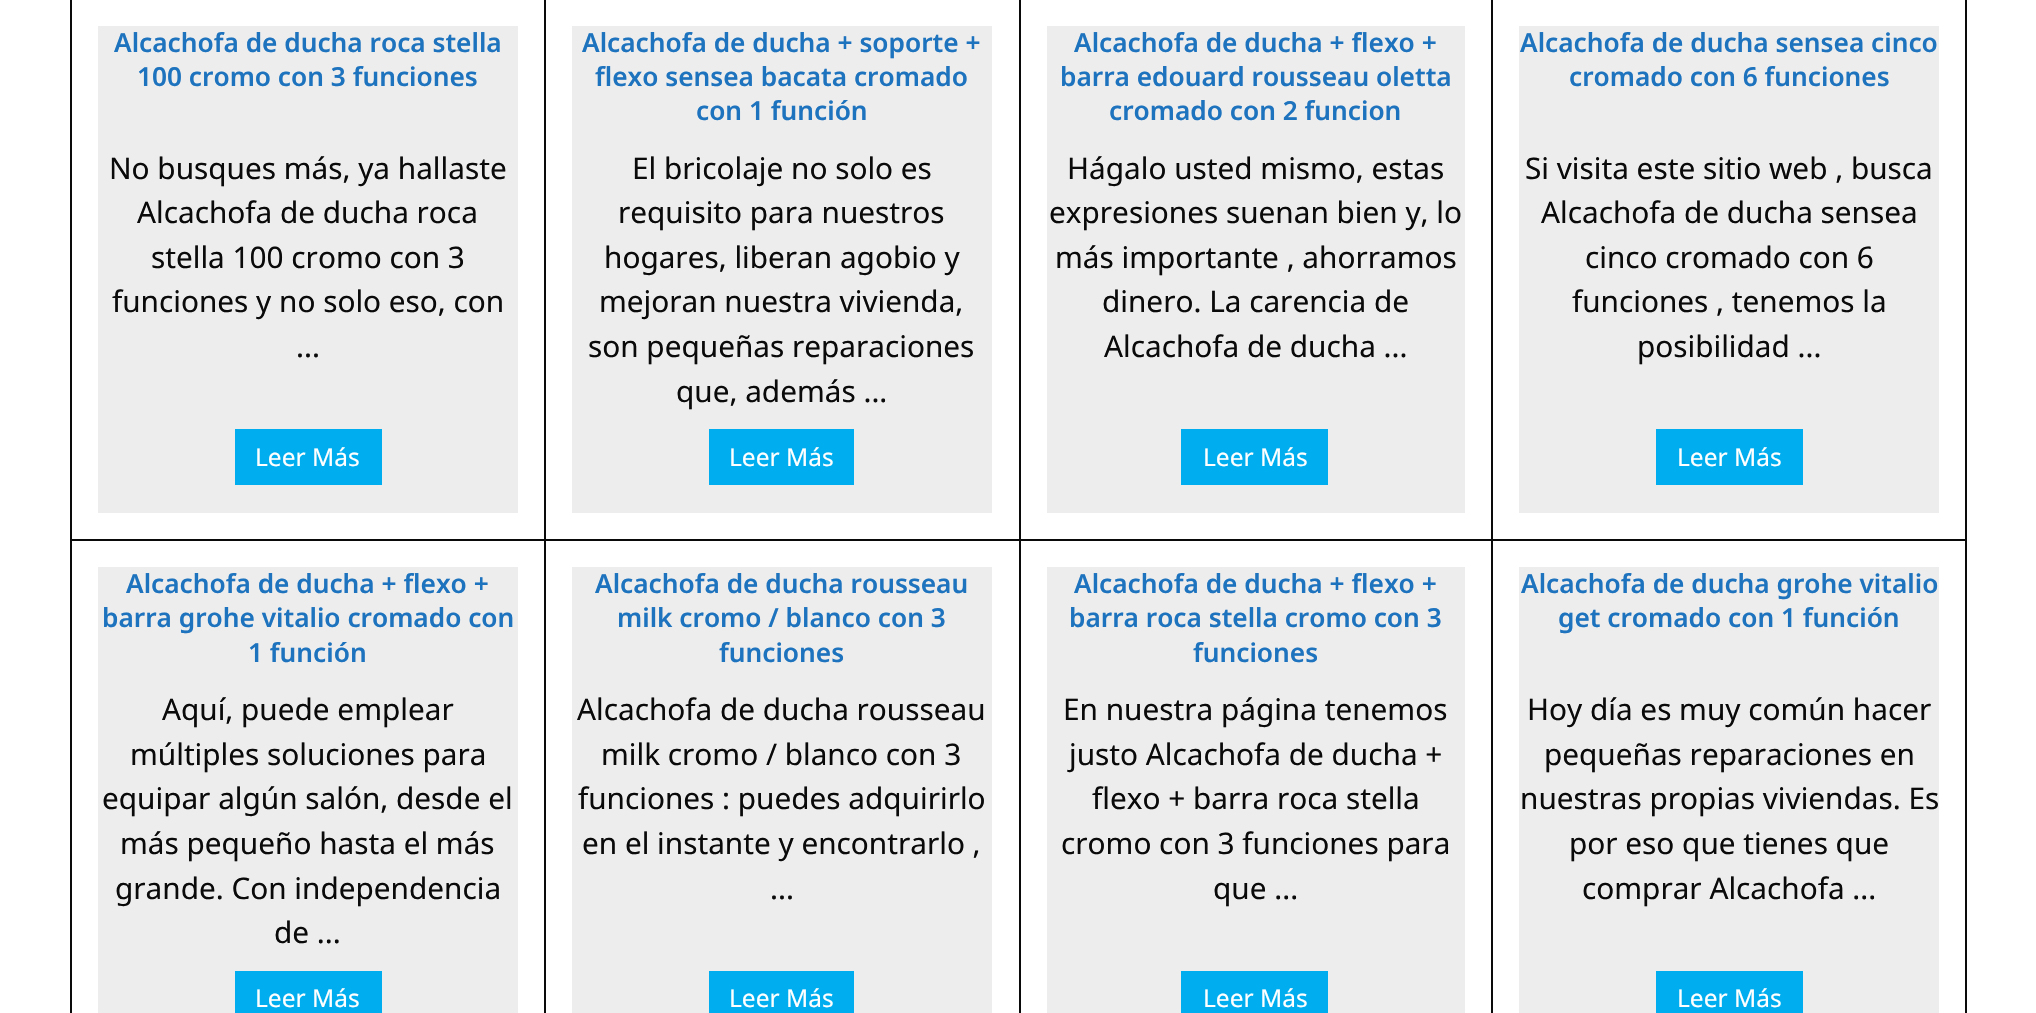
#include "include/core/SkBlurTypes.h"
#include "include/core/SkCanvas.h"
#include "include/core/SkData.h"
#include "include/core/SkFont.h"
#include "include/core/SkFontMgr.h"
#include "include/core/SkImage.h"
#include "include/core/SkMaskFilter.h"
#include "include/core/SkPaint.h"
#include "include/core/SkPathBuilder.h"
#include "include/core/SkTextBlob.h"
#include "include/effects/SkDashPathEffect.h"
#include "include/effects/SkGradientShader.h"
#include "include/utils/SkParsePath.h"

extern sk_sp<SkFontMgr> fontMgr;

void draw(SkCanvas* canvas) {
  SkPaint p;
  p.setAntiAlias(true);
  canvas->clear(SK_ColorWHITE);
  p.setColor(SkColorSetRGB(10, 10, 10));
  canvas->drawRect(SkRect::MakeLTRB(70, 0, 72, 1013), p);
  canvas->drawRect(SkRect::MakeLTRB(544, 0, 546, 1013), p);
  canvas->drawRect(SkRect::MakeLTRB(72, 539, 546, 541), p);
  p.setColor(SkColorSetRGB(237, 237, 237));
  canvas->drawRect(SkRect::MakeLTRB(98, 26, 518, 513), p);
  p.setColor(SkColorSetRGB(0, 174, 239));
  canvas->drawRect(SkRect::MakeLTRB(235, 429, 382, 485), p);
  p.setColor(SkColorSetRGB(10, 10, 10));
  canvas->drawRect(SkRect::MakeLTRB(1019, 0, 1021, 1013), p);
  canvas->drawRect(SkRect::MakeLTRB(546, 539, 1020, 541), p);
  p.setColor(SkColorSetRGB(237, 237, 237));
  canvas->drawRect(SkRect::MakeLTRB(572, 26, 992, 513), p);
  p.setColor(SkColorSetRGB(0, 174, 239));
  canvas->drawRect(SkRect::MakeLTRB(709, 429, 854, 485), p);
  p.setColor(SkColorSetRGB(10, 10, 10));
  canvas->drawRect(SkRect::MakeLTRB(1491, 0, 1493, 1013), p);
  canvas->drawRect(SkRect::MakeLTRB(1020, 539, 1493, 541), p);
  p.setColor(SkColorSetRGB(237, 237, 237));
  canvas->drawRect(SkRect::MakeLTRB(1047, 26, 1465, 513), p);
  p.setColor(SkColorSetRGB(0, 174, 239));
  canvas->drawRect(SkRect::MakeLTRB(1181, 429, 1328, 485), p);
  p.setColor(SkColorSetRGB(10, 10, 10));
  canvas->drawRect(SkRect::MakeLTRB(1965, 0, 1967, 1013), p);
  canvas->drawRect(SkRect::MakeLTRB(1493, 539, 1967, 541), p);
  p.setColor(SkColorSetRGB(237, 237, 237));
  canvas->drawRect(SkRect::MakeLTRB(1519, 26, 1939, 513), p);
  p.setColor(SkColorSetRGB(0, 174, 239));
  canvas->drawRect(SkRect::MakeLTRB(1656, 429, 1803, 485), p);
  p.setColor(SkColorSetRGB(237, 237, 237));
  canvas->drawRect(SkRect::MakeLTRB(98, 567, 518, 1013), p);
  p.setColor(SkColorSetRGB(0, 174, 239));
  canvas->drawRect(SkRect::MakeLTRB(235, 971, 382, 1013), p);
  p.setColor(SkColorSetRGB(237, 237, 237));
  canvas->drawRect(SkRect::MakeLTRB(572, 567, 992, 1013), p);
  p.setColor(SkColorSetRGB(0, 174, 239));
  canvas->drawRect(SkRect::MakeLTRB(709, 971, 854, 1013), p);
  p.setColor(SkColorSetRGB(237, 237, 237));
  canvas->drawRect(SkRect::MakeLTRB(1047, 567, 1465, 1013), p);
  p.setColor(SkColorSetRGB(0, 174, 239));
  canvas->drawRect(SkRect::MakeLTRB(1181, 971, 1328, 1013), p);
  p.setColor(SkColorSetRGB(237, 237, 237));
  canvas->drawRect(SkRect::MakeLTRB(1519, 567, 1939, 1013), p);
  p.setColor(SkColorSetRGB(0, 174, 239));
  canvas->drawRect(SkRect::MakeLTRB(1656, 971, 1803, 1013), p);
  SkFont font1(fontMgr->matchFamilyStyle("Noto Sans", SkFontStyle(600, SkFontStyle::kNormal_Width, SkFontStyle::kUpright_Slant)), 26.25f);
  font1.setSubpixel(true);
  p.setColor(SkColorSetRGB(30, 115, 190));
  canvas->drawString("Alcachofa de ducha roca stella", 114, 52, font1, p);
  canvas->drawString("100 cromo con 3 funciones", 137, 86, font1, p);
  SkFont font2(fontMgr->matchFamilyStyle("Noto Sans", SkFontStyle::Normal()), 29.75f);
  font2.setSubpixel(true);
  p.setColor(SkColorSetRGB(10, 10, 10));
  canvas->drawString("No busques más, ya hallaste", 109, 179, font2, p);
  canvas->drawString("Alcachofa de ducha roca", 137, 223, font2, p);
  canvas->drawString("stella 100 cromo con 3", 151, 268, font2, p);
  canvas->drawString("funciones y no solo eso, con", 112, 312, font2, p);
  canvas->drawString("...", 296, 357, font2, p);
  SkFont font3(fontMgr->matchFamilyStyle("Noto Sans", SkFontStyle::Normal()), 24.5f);
  font3.setSubpixel(true);
  p.setColor(SK_ColorWHITE);
  canvas->drawString("Leer Más", 255, 466, font3, p);
  p.setColor(SkColorSetRGB(30, 115, 190));
  canvas->drawString("Alcachofa de ducha + soporte +", 582, 52, font1, p);
  canvas->drawString("flexo sensea bacata cromado", 595, 86, font1, p);
  canvas->drawString("con 1 función", 696, 120, font1, p);
  p.setColor(SkColorSetRGB(10, 10, 10));
  canvas->drawString("El bricolaje no solo es", 632, 179, font2, p);
  canvas->drawString("requisito para nuestros", 618, 223, font2, p);
  canvas->drawString("hogares, liberan agobio y", 604, 268, font2, p);
  canvas->drawString("mejoran nuestra vivienda,", 599, 312, font2, p);
  canvas->drawString("son pequeñas reparaciones", 588, 357, font2, p);
  canvas->drawString("que, además ...", 676, 402, font2, p);
  p.setColor(SK_ColorWHITE);
  canvas->drawString("Leer Más", 729, 466, font3, p);
  p.setColor(SkColorSetRGB(30, 115, 190));
  canvas->drawString("Alcachofa de ducha + flexo +", 1074, 52, font1, p);
  canvas->drawString("barra edouard rousseau oletta", 1060, 86, font1, p);
  canvas->drawString("cromado con 2 funcion", 1109, 120, font1, p);
  p.setColor(SkColorSetRGB(10, 10, 10));
  canvas->drawString("Hágalo usted mismo, estas", 1067, 179, font2, p);
  canvas->drawString("expresiones suenan bien y, lo", 1049, 223, font2, p);
  canvas->drawString("más importante , ahorramos", 1055, 268, font2, p);
  canvas->drawString("dinero. La carencia de", 1102, 312, font2, p);
  canvas->drawString("Alcachofa de ducha ...", 1104, 357, font2, p);
  p.setColor(SK_ColorWHITE);
  canvas->drawString("Leer Más", 1203, 466, font3, p);
  p.setColor(SkColorSetRGB(30, 115, 190));
  canvas->drawString("Alcachofa de ducha sensea cinco", 1520, 52, font1, p);
  canvas->drawString("cromado con 6 funciones", 1569, 86, font1, p);
  p.setColor(SkColorSetRGB(10, 10, 10));
  canvas->drawString("Si visita este sitio web , busca", 1525, 179, font2, p);
  canvas->drawString("Alcachofa de ducha sensea", 1541, 223, font2, p);
  canvas->drawString("cinco cromado con 6", 1585, 268, font2, p);
  canvas->drawString("funciones , tenemos la", 1572, 312, font2, p);
  canvas->drawString("posibilidad ...", 1637, 357, font2, p);
  p.setColor(SK_ColorWHITE);
  canvas->drawString("Leer Más", 1677, 466, font3, p);
  p.setColor(SkColorSetRGB(30, 115, 190));
  canvas->drawString("Alcachofa de ducha + flexo +", 126, 593, font1, p);
  canvas->drawString("barra grohe vitalio cromado con", 102, 627, font1, p);
  canvas->drawString("1 función", 248, 662, font1, p);
  p.setColor(SkColorSetRGB(10, 10, 10));
  canvas->drawString("Aquí, puede emplear", 162, 720, font2, p);
  canvas->drawString("múltiples soluciones para", 130, 765, font2, p);
  canvas->drawString("equipar algún salón, desde el", 102, 809, font2, p);
  canvas->drawString("más pequeño hasta el más", 120, 854, font2, p);
  canvas->drawString("grande. Con independencia", 115, 899, font2, p);
  canvas->drawString("de ...", 274, 943, font2, p);
  p.setColor(SK_ColorWHITE);
  canvas->drawString("Leer Más", 255, 1007, font3, p);
  p.setColor(SkColorSetRGB(30, 115, 190));
  canvas->drawString("Alcachofa de ducha rousseau", 595, 593, font1, p);
  canvas->drawString("milk cromo / blanco con 3", 617, 627, font1, p);
  canvas->drawString("funciones", 719, 662, font1, p);
  p.setColor(SkColorSetRGB(10, 10, 10));
  canvas->drawString("Alcachofa de ducha rousseau", 577, 720, font2, p);
  canvas->drawString("milk cromo / blanco con 3", 601, 765, font2, p);
  canvas->drawString("funciones : puedes adquirirlo", 578, 809, font2, p);
  canvas->drawString("en el instante y encontrarlo ,", 582, 854, font2, p);
  canvas->drawString("...", 770, 899, font2, p);
  p.setColor(SK_ColorWHITE);
  canvas->drawString("Leer Más", 729, 1007, font3, p);
  p.setColor(SkColorSetRGB(30, 115, 190));
  canvas->drawString("Alcachofa de ducha + flexo +", 1074, 593, font1, p);
  canvas->drawString("barra roca stella cromo con 3", 1069, 627, font1, p);
  canvas->drawString("funciones", 1193, 662, font1, p);
  p.setColor(SkColorSetRGB(10, 10, 10));
  canvas->drawString("En nuestra página tenemos", 1063, 720, font2, p);
  canvas->drawString("justo Alcachofa de ducha +", 1069, 765, font2, p);
  canvas->drawString("flexo + barra roca stella", 1092, 809, font2, p);
  canvas->drawString("cromo con 3 funciones para", 1061, 854, font2, p);
  canvas->drawString("que ...", 1213, 899, font2, p);
  p.setColor(SK_ColorWHITE);
  canvas->drawString("Leer Más", 1203, 1007, font3, p);
  p.setColor(SkColorSetRGB(30, 115, 190));
  canvas->drawString("Alcachofa de ducha grohe vitalio", 1521, 593, font1, p);
  canvas->drawString("get cromado con 1 función", 1558, 627, font1, p);
  p.setColor(SkColorSetRGB(10, 10, 10));
  canvas->drawString("Hoy día es muy común hacer", 1527, 720, font2, p);
  canvas->drawString("pequeñas reparaciones en", 1544, 765, font2, p);
  canvas->drawString("nuestras propias viviendas. Es", 1520, 809, font2, p);
  canvas->drawString("por eso que tienes que", 1569, 854, font2, p);
  canvas->drawString("comprar Alcachofa ...", 1582, 899, font2, p);
  p.setColor(SK_ColorWHITE);
  canvas->drawString("Leer Más", 1677, 1007, font3, p);
}
